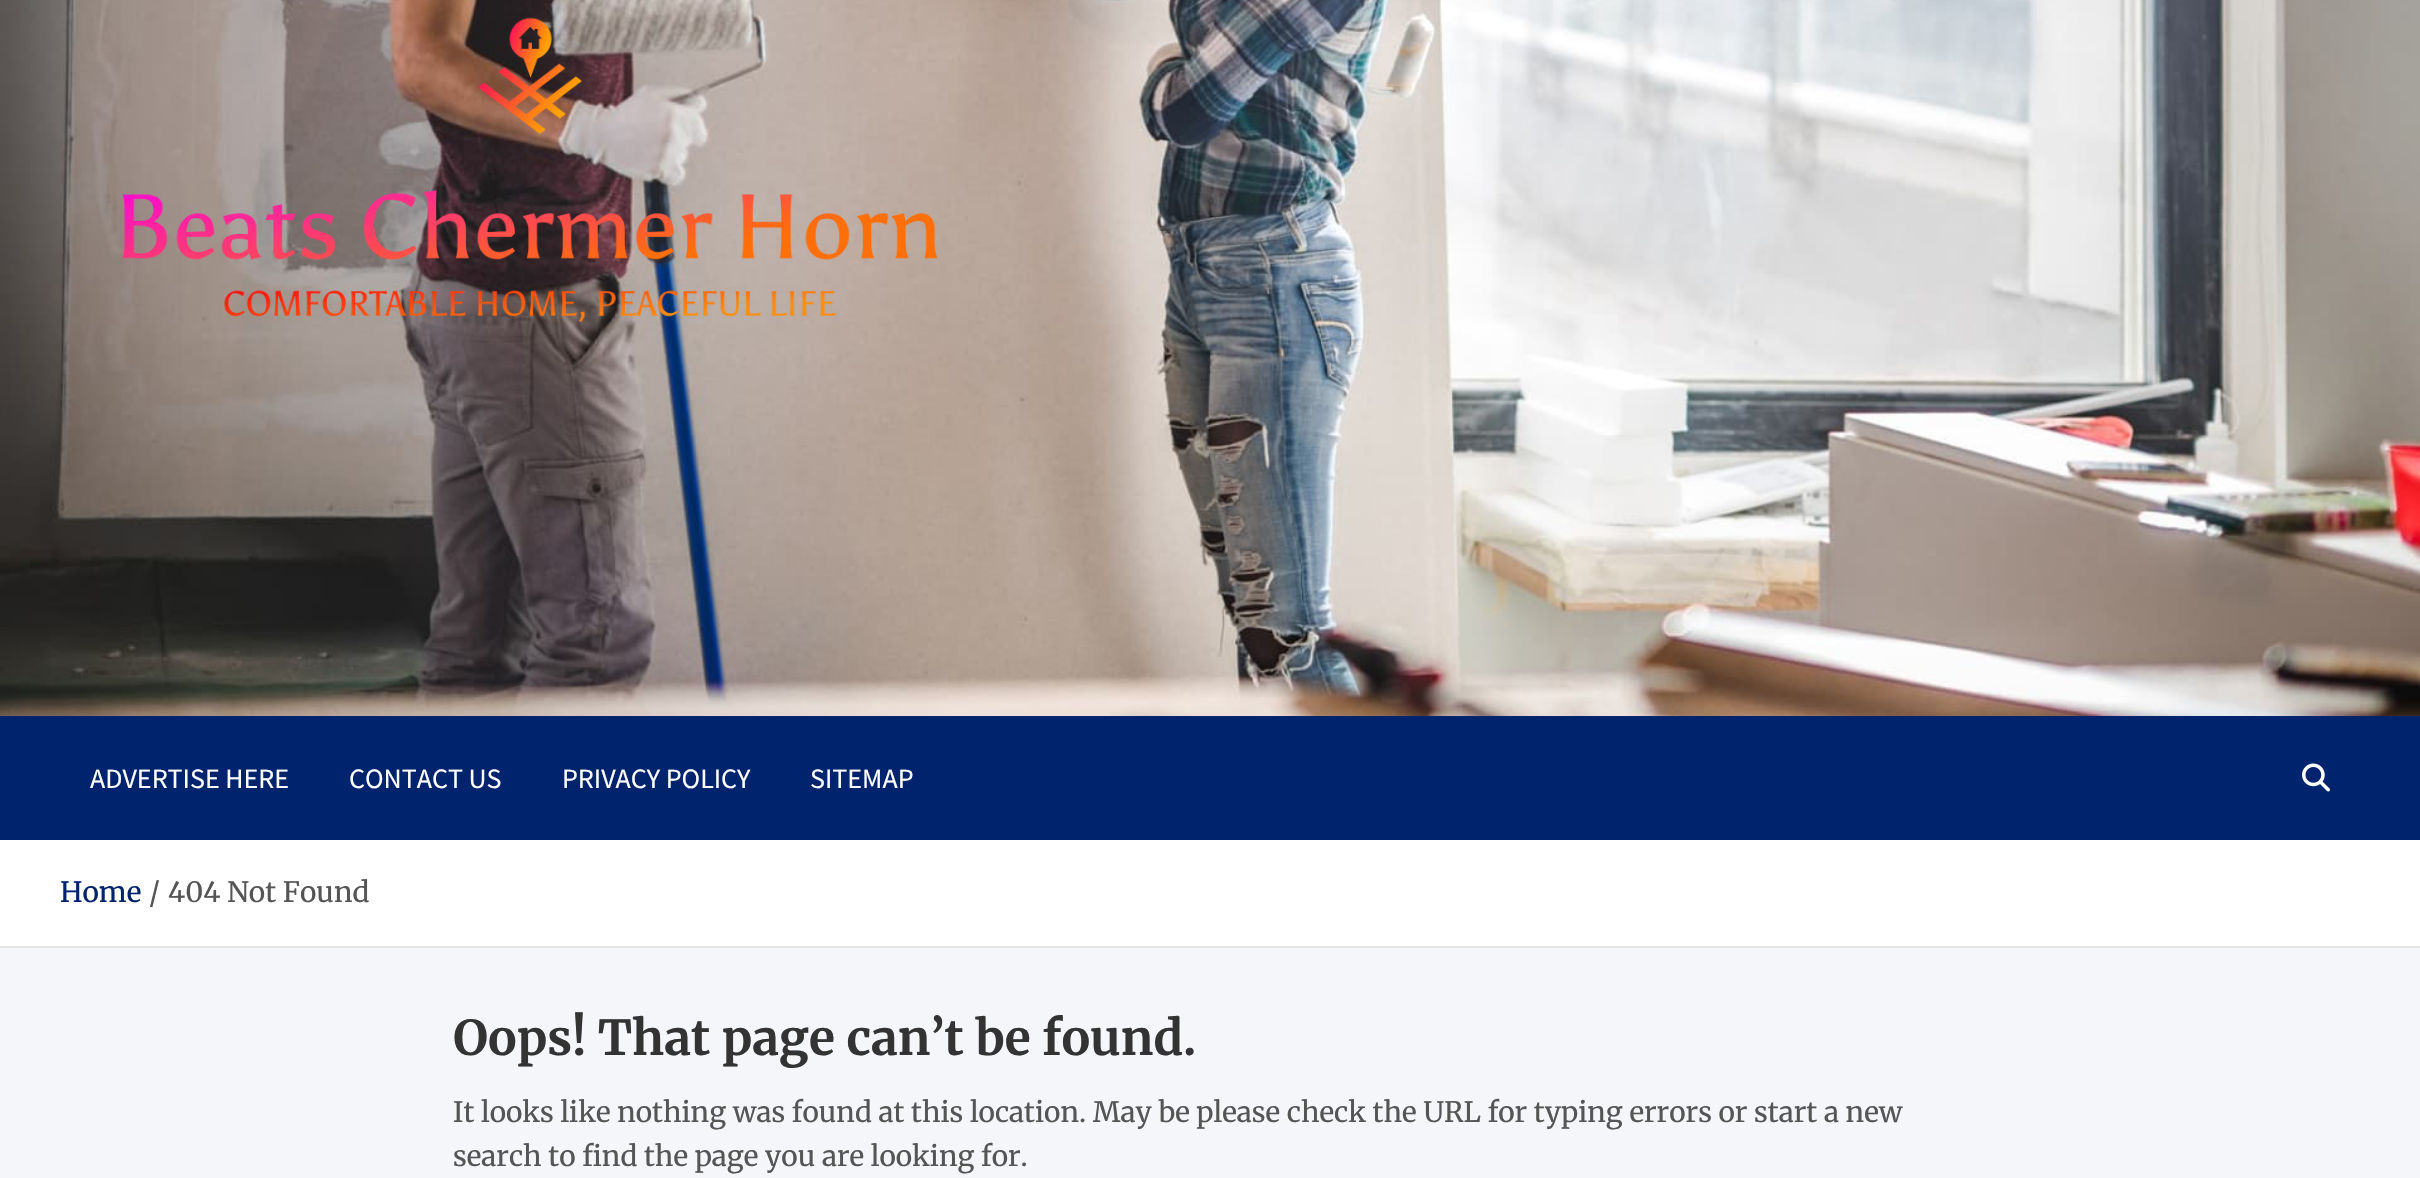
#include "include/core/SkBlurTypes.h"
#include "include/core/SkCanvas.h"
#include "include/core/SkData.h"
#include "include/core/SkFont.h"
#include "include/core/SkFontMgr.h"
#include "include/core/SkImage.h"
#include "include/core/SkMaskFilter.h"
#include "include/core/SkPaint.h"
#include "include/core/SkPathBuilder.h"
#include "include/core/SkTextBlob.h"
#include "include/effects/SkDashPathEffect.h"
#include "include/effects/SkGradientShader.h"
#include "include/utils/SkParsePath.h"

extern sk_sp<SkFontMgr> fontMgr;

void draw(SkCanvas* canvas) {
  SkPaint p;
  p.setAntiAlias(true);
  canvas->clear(SkColorSetRGB(244, 246, 249));
  canvas->drawImageRect(SkImages::DeferredFromEncodedData(SkData::MakeFromFileName("images/1.png")), SkRect::MakeLTRB(0, 0, 2420, 716), SkSamplingOptions());
  canvas->drawImageRect(SkImages::DeferredFromEncodedData(SkData::MakeFromFileName("images/2.png")), SkRect::MakeLTRB(122, 17, 938, 323), SkSamplingOptions());
  p.setColor(SkColorSetRGB(0, 35, 110));
  canvas->drawRect(SkRect::MakeLTRB(0, 716, 2420, 840), p);
  canvas->drawImageRect(SkImages::DeferredFromEncodedData(SkData::MakeFromFileName("images/3.png")), SkRect::MakeLTRB(2302, 763, 2330, 792), SkSamplingOptions());
  p.setColor(SK_ColorWHITE);
  canvas->drawRect(SkRect::MakeLTRB(0, 840, 2420, 946), p);
  p.setColor(SkColorSetRGB(230, 230, 230));
  canvas->drawRect(SkRect::MakeLTRB(0, 946, 2420, 948), p);
  SkFont font1(fontMgr->matchFamilyStyle("Source Sans Pro", SkFontStyle::Normal()), 28);
  font1.setSubpixel(true);
  p.setColor(SK_ColorWHITE);
  canvas->drawString("ADVERTISE HERE", 90, 788, font1, p);
  canvas->drawString("CONTACT US", 349, 788, font1, p);
  canvas->drawString("PRIVACY POLICY", 562, 788, font1, p);
  canvas->drawString("SITEMAP", 810, 788, font1, p);
  SkFont font2(fontMgr->matchFamilyStyle("Merriweather", SkFontStyle::Normal()), 28);
  font2.setSubpixel(true);
  p.setColor(SkColorSetRGB(0, 35, 110));
  canvas->drawString("Home", 60, 902, font2, p);
  p.setColor(SkColorSetRGB(85, 85, 85));
  canvas->drawString("/", 149, 902, font2, p);
  canvas->drawString("404 Not Found", 168, 902, font2, p);
  SkFont font3(fontMgr->matchFamilyStyle("Merriweather", SkFontStyle::Bold()), 48);
  font3.setSubpixel(true);
  p.setColor(SkColorSetRGB(51, 51, 51));
  canvas->drawString("Oops! That page can’t be found.", 453, 1055, font3, p);
  p.setColor(SkColorSetRGB(85, 85, 85));
  canvas->drawString("It looks like nothing was found at this location. May be please check the URL for typing errors or start a new", 453, 1122, font2, p);
  canvas->drawString("search to find the page you are looking for.", 453, 1166, font2, p);
}
